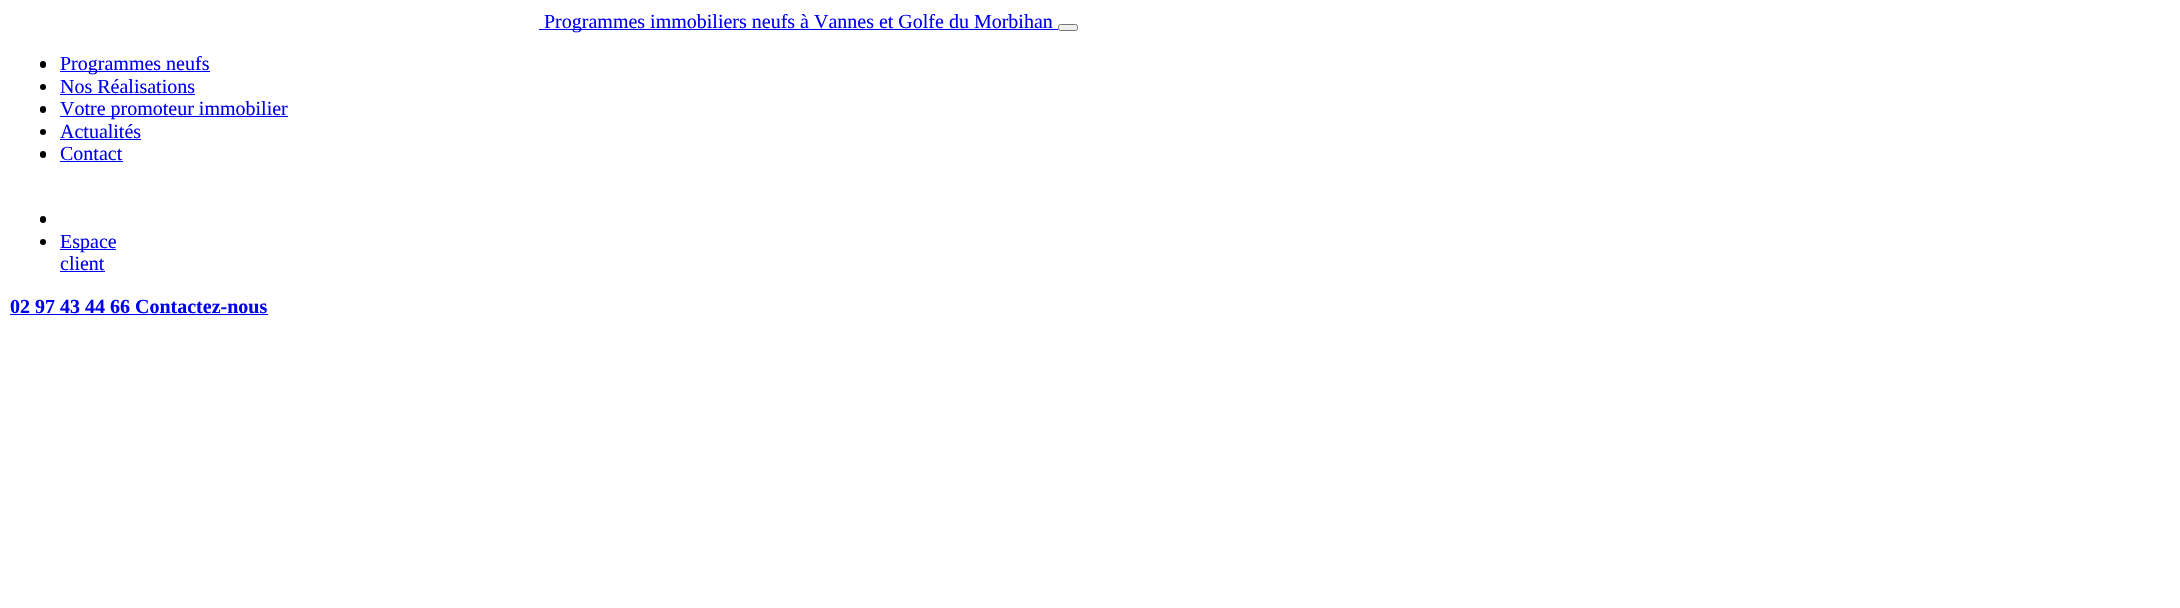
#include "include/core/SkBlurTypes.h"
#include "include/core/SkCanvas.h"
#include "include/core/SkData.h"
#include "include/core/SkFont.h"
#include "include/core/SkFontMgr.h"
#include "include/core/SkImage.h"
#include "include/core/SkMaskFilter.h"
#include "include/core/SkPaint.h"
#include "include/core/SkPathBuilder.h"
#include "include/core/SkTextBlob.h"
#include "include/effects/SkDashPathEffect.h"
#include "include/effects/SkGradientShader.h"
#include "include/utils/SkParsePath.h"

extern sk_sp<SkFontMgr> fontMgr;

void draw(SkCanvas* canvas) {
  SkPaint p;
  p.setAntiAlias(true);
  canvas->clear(SK_ColorWHITE);
  p.setColor(SkColorSetRGB(0, 0, 238));
  canvas->drawRect(SkRect::MakeLTRB(539, 29, 1058, 30), p);
  p.setColor(SkColorSetRGB(239, 239, 239));
  canvas->drawRoundRect(SkRect::MakeLTRB(1058.5f, 24.5f, 1077.5f, 30.5f), 2, 2, p);
  p.setStyle(SkPaint::kStroke_Style);
  p.setStrokeWidth(1);
  p.setColor(SkColorSetRGB(118, 118, 118));
  canvas->drawRoundRect(SkRect::MakeLTRB(1058.5f, 24.5f, 1077.5f, 30.5f), 2, 2, p);
  p.setStyle(SkPaint::kFill_Style);
  p.setColor(SK_ColorBLACK);
  canvas->drawRoundRect(SkRect::MakeLTRB(40, 61, 46, 68), 3, 3, p);
  p.setColor(SkColorSetRGB(0, 0, 238));
  canvas->drawRect(SkRect::MakeLTRB(60, 71, 210, 72), p);
  p.setColor(SK_ColorBLACK);
  canvas->drawCircle(43, 87, 3, p);
  p.setColor(SkColorSetRGB(0, 0, 238));
  canvas->drawRect(SkRect::MakeLTRB(60, 94, 195, 95), p);
  p.setColor(SK_ColorBLACK);
  canvas->drawRoundRect(SkRect::MakeLTRB(40, 106, 46, 113), 3, 3, p);
  p.setColor(SkColorSetRGB(0, 0, 238));
  canvas->drawRect(SkRect::MakeLTRB(60, 116, 288, 117), p);
  p.setColor(SK_ColorBLACK);
  canvas->drawCircle(43, 132, 3, p);
  p.setColor(SkColorSetRGB(0, 0, 238));
  canvas->drawRect(SkRect::MakeLTRB(60, 139, 141, 140), p);
  p.setColor(SK_ColorBLACK);
  canvas->drawRoundRect(SkRect::MakeLTRB(40, 151, 46, 158), 3, 3, p);
  p.setColor(SkColorSetRGB(0, 0, 238));
  canvas->drawRect(SkRect::MakeLTRB(60, 161, 123, 162), p);
  p.setColor(SK_ColorBLACK);
  canvas->drawRoundRect(SkRect::MakeLTRB(40, 216, 46, 223), 3, 3, p);
  canvas->drawCircle(43, 242, 3, p);
  p.setColor(SkColorSetRGB(0, 0, 238));
  canvas->drawRect(SkRect::MakeLTRB(60, 249, 116, 250), p);
  canvas->drawRect(SkRect::MakeLTRB(60, 271, 105, 272), p);
  canvas->drawRect(SkRect::MakeLTRB(10, 314, 268, 315), p);
  SkFont font1(fontMgr->matchFamilyStyle("Liberation Serif", SkFontStyle::Normal()), 20);
  font1.setSubpixel(true);
  canvas->drawString("Programmes immobiliers neufs à Vannes et Golfe du Morbihan", 544, 28, font1, p);
  canvas->drawString("Programmes neufs", 60, 70, font1, p);
  canvas->drawString("Nos Réalisations", 60, 93, font1, p);
  canvas->drawString("Votre promoteur immobilier", 60, 115, font1, p);
  canvas->drawString("Actualités", 60, 138, font1, p);
  canvas->drawString("Contact", 60, 160, font1, p);
  canvas->drawString("Espace", 60, 248, font1, p);
  canvas->drawString("client", 60, 270, font1, p);
  SkFont font2(fontMgr->matchFamilyStyle("Liberation Serif", SkFontStyle::Bold()), 20);
  font2.setSubpixel(true);
  canvas->drawString("02 97 43 44 66 Contactez-nous", 10, 313, font2, p);
}
